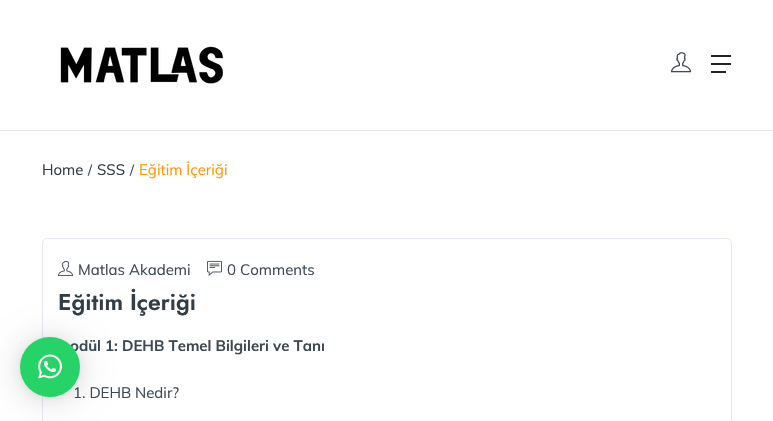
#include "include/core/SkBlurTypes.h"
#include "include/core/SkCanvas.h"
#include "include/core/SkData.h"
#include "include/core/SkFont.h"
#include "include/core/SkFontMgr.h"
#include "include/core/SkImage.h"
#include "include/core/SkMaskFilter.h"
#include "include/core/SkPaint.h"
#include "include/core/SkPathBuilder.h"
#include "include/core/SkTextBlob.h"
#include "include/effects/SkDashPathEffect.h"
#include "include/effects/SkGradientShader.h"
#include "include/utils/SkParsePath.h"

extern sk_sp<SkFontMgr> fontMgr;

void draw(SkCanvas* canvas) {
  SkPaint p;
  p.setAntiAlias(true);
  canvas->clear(SK_ColorWHITE);
  p.setColor(SkColorSetRGB(229, 232, 243));
  canvas->drawRect(SkRect::MakeLTRB(0, 130, 773, 131), p);
  canvas->drawImageRect(SkImages::DeferredFromEncodedData(SkData::MakeFromFileName("images/1.png")), SkRect::MakeLTRB(60, 46, 224, 84), SkSamplingOptions());
  canvas->drawImageRect(SkImages::DeferredFromEncodedData(SkData::MakeFromFileName("images/2.png")), SkRect::MakeLTRB(671, 52, 691, 73), SkSamplingOptions());
  p.setColor(SkColorSetRGB(34, 34, 34));
  canvas->drawRect(SkRect::MakeLTRB(711, 55, 731, 57), p);
  canvas->drawRect(SkRect::MakeLTRB(711, 63, 731, 65), p);
  canvas->drawRect(SkRect::MakeLTRB(711, 71, 726, 73), p);
  p.setStyle(SkPaint::kStroke_Style);
  p.setStrokeWidth(1);
  p.setColor(SkColorSetRGB(229, 232, 243));
  canvas->drawRoundRect(SkRect::MakeLTRB(42.5f, 238.5f, 731.5f, 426.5f), 4.5f, 4.5f, p);
  canvas->drawImageRect(SkImages::DeferredFromEncodedData(SkData::MakeFromFileName("images/3.png")), SkRect::MakeLTRB(58, 260, 73, 276), SkSamplingOptions());
  canvas->drawImageRect(SkImages::DeferredFromEncodedData(SkData::MakeFromFileName("images/4.png")), SkRect::MakeLTRB(207, 260, 222, 276), SkSamplingOptions());
  p.setStyle(SkPaint::kFill_Style);
  p.setColor(SkColorSetARGB(41, 0, 0, 0));
  p.setMaskFilter(SkMaskFilter::MakeBlur(kNormal_SkBlurStyle, 16));
  canvas->drawRoundRect(SkRect::MakeLTRB(20, 339, 80, 399), 30, 30, p);
  p.setMaskFilter(nullptr);
  p.setColor(SkColorSetARGB(15, 0, 0, 0));
  p.setMaskFilter(SkMaskFilter::MakeBlur(kNormal_SkBlurStyle, 3));
  canvas->drawRoundRect(SkRect::MakeLTRB(20, 338, 80, 398), 30, 30, p);
  p.setMaskFilter(nullptr);
  SkFont font1(fontMgr->matchFamilyStyle("Muli", SkFontStyle::Normal()), 15);
  font1.setSubpixel(true);
  p.setColor(SkColorSetRGB(51, 61, 70));
  canvas->drawString("Home", 42, 175, font1, p);
  SkFont font2(fontMgr->matchFamilyStyle("Muli", SkFontStyle::Normal()), 14);
  font2.setSubpixel(true);
  p.setColor(SkColorSetRGB(60, 72, 82));
  canvas->drawString("/", 88, 175, font2, p);
  p.setColor(SkColorSetRGB(51, 61, 70));
  canvas->drawString("SSS", 97, 175, font1, p);
  p.setColor(SkColorSetRGB(60, 72, 82));
  canvas->drawString("/", 130, 175, font2, p);
  p.setColor(SkColorSetRGB(255, 152, 0));
  canvas->drawString("Eğitim İçeriği", 139, 175, font1, p);
  p.setColor(SkColorSetRGB(60, 72, 82));
  canvas->drawString("Matlas Akademi", 78, 275, font1, p);
  canvas->drawString("0 Comments", 227, 275, font1, p);
  SkFont font3(fontMgr->matchFamilyStyle("Jost", SkFontStyle(600, SkFontStyle::kNormal_Width, SkFontStyle::kUpright_Slant)), 23);
  font3.setSubpixel(true);
  p.setColor(SkColorSetRGB(51, 61, 70));
  canvas->drawString("Eğitim İçeriği", 58, 310, font3, p);
  SkFont font4(fontMgr->matchFamilyStyle("Muli", SkFontStyle::Bold()), 15);
  font4.setSubpixel(true);
  p.setColor(SkColorSetRGB(60, 72, 82));
  canvas->drawString("odül 1: DEHB Temel Bilgileri ve Tanı", 70, 351, font4, p);
  canvas->drawString("1. DEHB Nedir?", 73, 398, font1, p);
  p.setColor(SkColorSetRGB(37, 211, 102));
  canvas->drawCircle(50, 367, 30, p);
  canvas->drawImageRect(SkImages::DeferredFromEncodedData(SkData::MakeFromFileName("images/5.png")), SkRect::MakeLTRB(38, 354, 62, 379), SkSamplingOptions());
}
